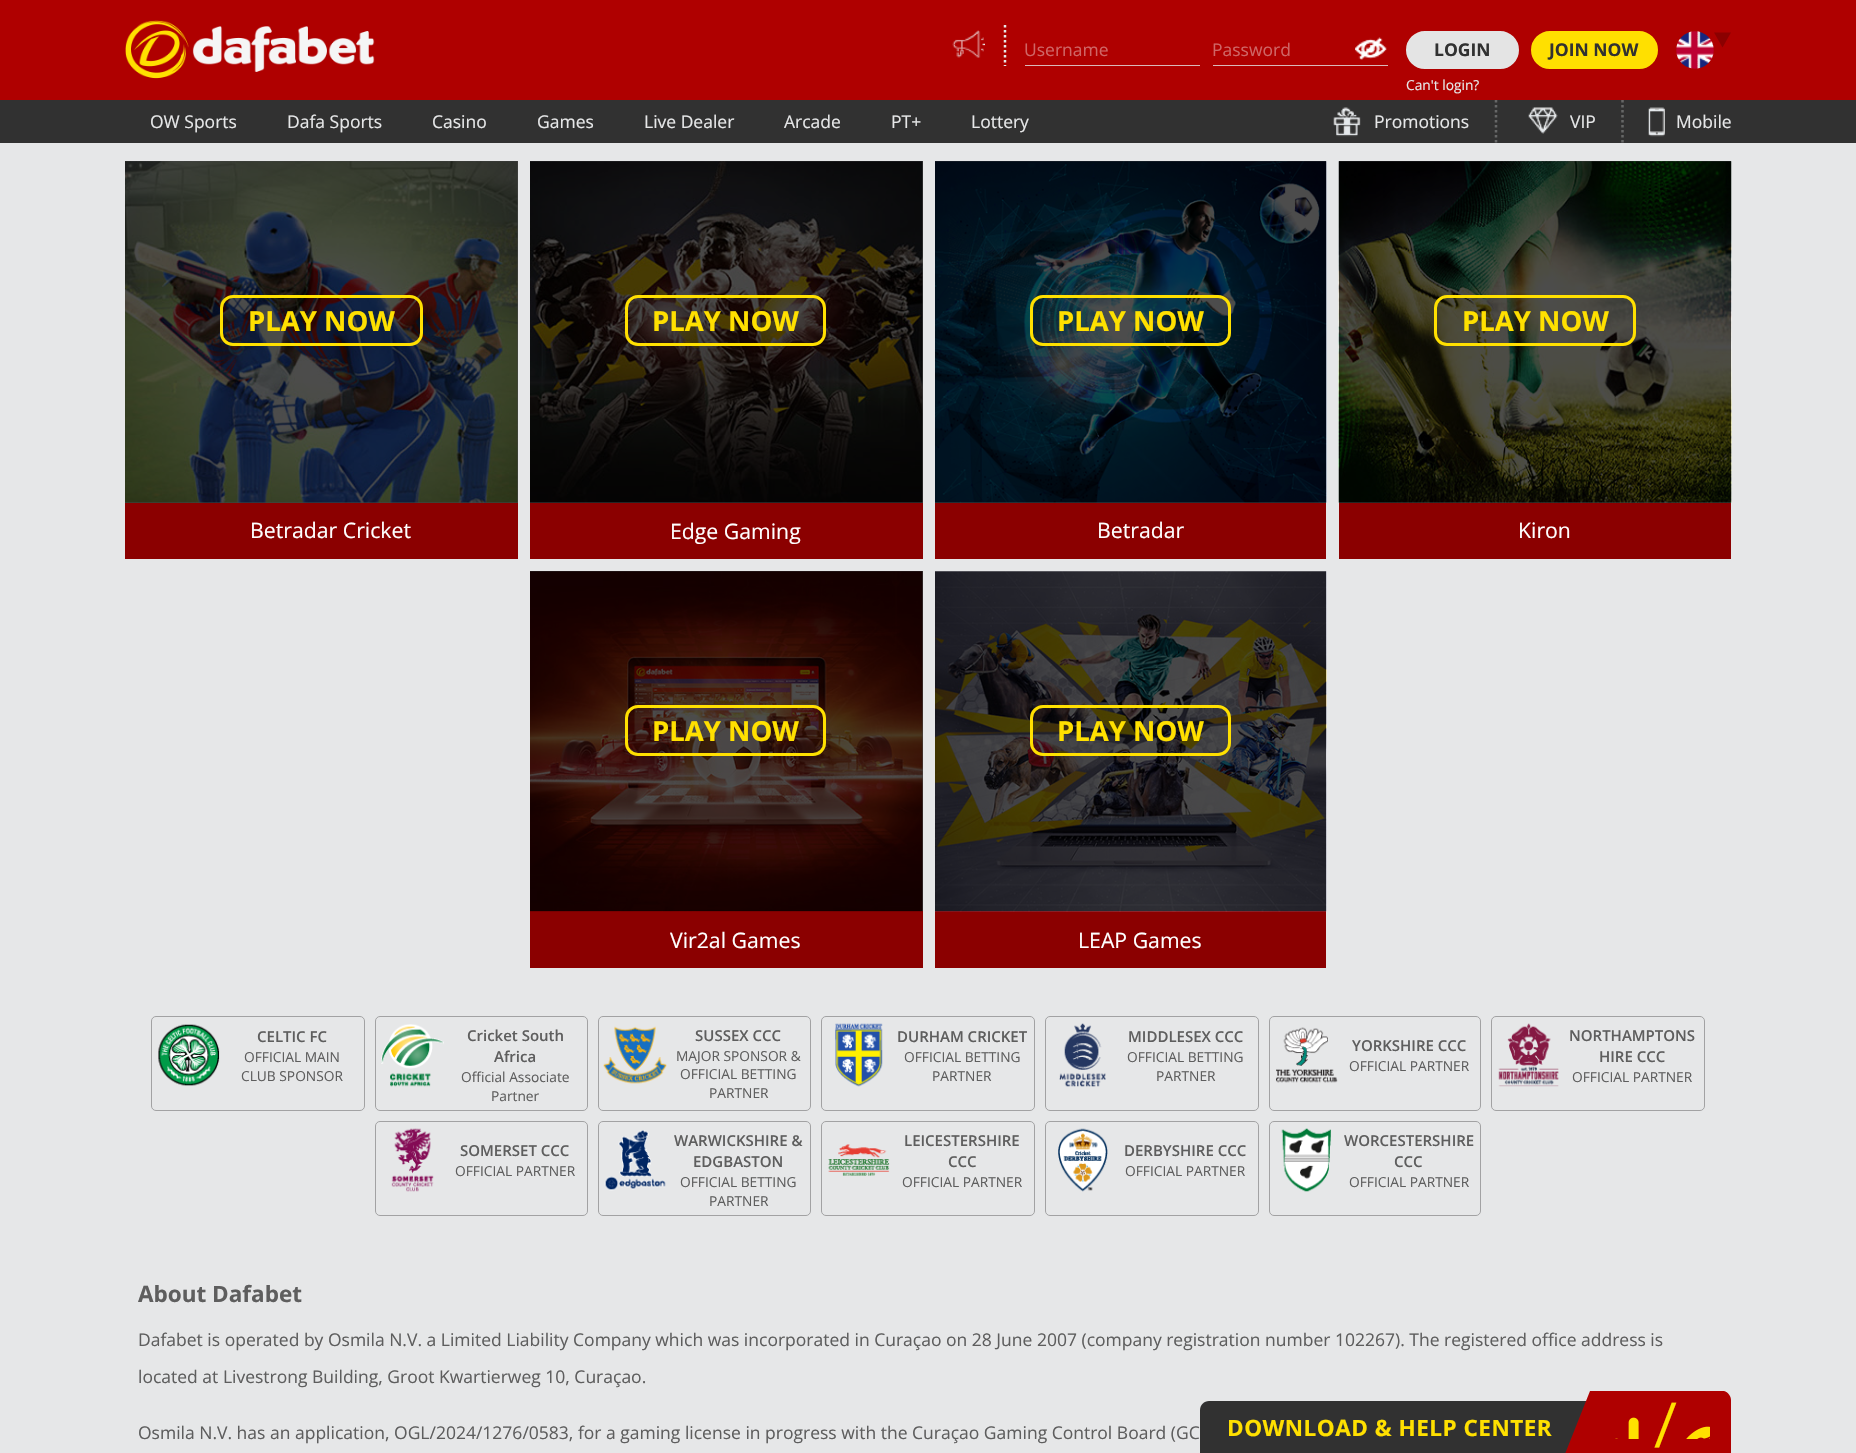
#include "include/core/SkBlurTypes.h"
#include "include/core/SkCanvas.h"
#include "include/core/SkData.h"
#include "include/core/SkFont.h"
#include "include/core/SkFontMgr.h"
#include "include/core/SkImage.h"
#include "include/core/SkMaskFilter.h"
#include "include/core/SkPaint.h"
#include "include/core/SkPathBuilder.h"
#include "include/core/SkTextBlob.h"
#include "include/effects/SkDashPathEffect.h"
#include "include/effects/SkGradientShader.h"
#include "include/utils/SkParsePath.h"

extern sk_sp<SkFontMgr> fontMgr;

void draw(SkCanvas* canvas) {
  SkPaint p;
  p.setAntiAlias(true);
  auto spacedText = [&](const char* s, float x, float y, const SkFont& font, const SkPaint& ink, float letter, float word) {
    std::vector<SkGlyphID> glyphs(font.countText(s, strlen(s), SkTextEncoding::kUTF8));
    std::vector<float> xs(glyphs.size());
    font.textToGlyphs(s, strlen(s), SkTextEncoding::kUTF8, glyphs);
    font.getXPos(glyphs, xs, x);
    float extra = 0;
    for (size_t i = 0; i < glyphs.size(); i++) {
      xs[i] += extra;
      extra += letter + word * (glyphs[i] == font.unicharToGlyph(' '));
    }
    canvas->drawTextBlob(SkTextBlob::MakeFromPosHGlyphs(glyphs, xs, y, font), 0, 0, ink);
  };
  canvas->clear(SkColorSetRGB(230, 231, 232));
  p.setColor(SkColorSetRGB(69, 69, 70));
  canvas->drawRect(SkRect::MakeLTRB(530, 571, 923, 911), p);
  canvas->drawRect(SkRect::MakeLTRB(1339, 161, 1731, 503), p);
  canvas->drawRect(SkRect::MakeLTRB(935, 161, 1326, 503), p);
  canvas->drawRect(SkRect::MakeLTRB(530, 161, 923, 503), p);
  canvas->drawRect(SkRect::MakeLTRB(125, 161, 518, 503), p);
  p.setColor(SkColorSetRGB(175, 0, 0));
  canvas->drawRect(SkRect::MakeLTRB(0, 0, 1856, 100), p);
  canvas->drawImageRect(SkImages::DeferredFromEncodedData(SkData::MakeFromFileName("images/1.png")), SkRect::MakeLTRB(125, 20, 375, 79), SkSamplingOptions());
  canvas->drawImageRect(SkImages::DeferredFromEncodedData(SkData::MakeFromFileName("images/2.png")), SkRect::MakeLTRB(952, 30, 985, 58), SkSamplingOptions());
  p.setStyle(SkPaint::kStroke_Style);
  p.setStrokeWidth(2.5f);
  p.setColor(SkColorSetRGB(230, 231, 232));
  p.setPathEffect(SkDashPathEffect::Make({{2.5f, 2.5f}}, 0));
  canvas->drawPath(SkPathBuilder().moveTo(1005, 25).lineTo(1005, 66).detach(), p);
  p.setPathEffect(nullptr);
  p.setStyle(SkPaint::kFill_Style);
  p.setColor(SkColorSetRGB(218, 185, 185));
  canvas->drawRect(SkRect::MakeLTRB(1025, 65, 1200, 66), p);
  canvas->drawRect(SkRect::MakeLTRB(1213, 65, 1388, 66), p);
  canvas->drawImageRect(SkImages::DeferredFromEncodedData(SkData::MakeFromFileName("images/3.png")), SkRect::MakeLTRB(1355, 37, 1387, 60), SkSamplingOptions());
  p.setColor(SkColorSetRGB(228, 228, 228));
  canvas->drawRoundRect(SkRect::MakeLTRB(1407.5f, 32.5f, 1517.5f, 67.5f), 17.5f, 17.5f, p);
  p.setStyle(SkPaint::kStroke_Style);
  p.setStrokeWidth(3);
  canvas->drawRoundRect(SkRect::MakeLTRB(1407.5f, 32.5f, 1517.5f, 67.5f), 17.5f, 17.5f, p);
  p.setStyle(SkPaint::kFill_Style);
  p.setColor(SkColorSetRGB(255, 224, 0));
  canvas->drawRoundRect(SkRect::MakeLTRB(1532.5f, 32.5f, 1656.5f, 67.5f), 17.5f, 17.5f, p);
  p.setStyle(SkPaint::kStroke_Style);
  canvas->drawRoundRect(SkRect::MakeLTRB(1532.5f, 32.5f, 1656.5f, 67.5f), 17.5f, 17.5f, p);
  canvas->drawImageRect(SkImages::DeferredFromEncodedData(SkData::MakeFromFileName("images/4.png")), SkRect::MakeLTRB(1676, 31, 1714, 69), SkSamplingOptions());
  p.setStyle(SkPaint::kFill_Style);
  p.setColor(SkColorSetRGB(139, 0, 0));
  canvas->drawPath(SkPathBuilder().moveTo(1714, 32.5f).lineTo(1731, 32.5f).lineTo(1722.5f, 47.5f).close().detach(), p);
  p.setColor(SkColorSetRGB(49, 49, 49));
  canvas->drawRect(SkRect::MakeLTRB(0, 100, 1856, 143), p);
  p.setStyle(SkPaint::kStroke_Style);
  p.setStrokeWidth(2.5f);
  p.setColor(SkColorSetRGB(102, 103, 103));
  p.setPathEffect(SkDashPathEffect::Make({{2.5f, 2.5f}}, 0));
  canvas->drawPath(SkPathBuilder().moveTo(1496, 100).lineTo(1496, 142.5f).detach(), p);
  p.setPathEffect(nullptr);
  canvas->drawImageRect(SkImages::DeferredFromEncodedData(SkData::MakeFromFileName("images/5.png")), SkRect::MakeLTRB(1333, 107, 1361, 137), SkSamplingOptions());
  p.setPathEffect(SkDashPathEffect::Make({{2.5f, 2.5f}}, 0));
  canvas->drawPath(SkPathBuilder().moveTo(1622.5f, 100).lineTo(1622.5f, 142.5f).detach(), p);
  p.setPathEffect(nullptr);
  canvas->drawImageRect(SkImages::DeferredFromEncodedData(SkData::MakeFromFileName("images/6.png")), SkRect::MakeLTRB(1528, 107, 1558, 134), SkSamplingOptions());
  canvas->drawImageRect(SkImages::DeferredFromEncodedData(SkData::MakeFromFileName("images/7.png")), SkRect::MakeLTRB(1648, 107, 1665, 137), SkSamplingOptions());
  canvas->drawImageRect(SkImages::DeferredFromEncodedData(SkData::MakeFromFileName("images/8.png")), SkRect::MakeLTRB(125, 161, 518, 503), SkSamplingOptions());
  p.setStrokeWidth(3);
  p.setColor(SkColorSetRGB(255, 224, 0));
  canvas->drawRoundRect(SkRect::MakeLTRB(221.5f, 296.5f, 421.5f, 344.5f), 11.5f, 11.5f, p);
  p.setStyle(SkPaint::kFill_Style);
  p.setColor(SkColorSetRGB(139, 0, 0));
  canvas->drawRect(SkRect::MakeLTRB(125, 503, 518, 559), p);
  canvas->drawImageRect(SkImages::DeferredFromEncodedData(SkData::MakeFromFileName("images/9.png")), SkRect::MakeLTRB(530, 161, 923, 503), SkSamplingOptions());
  p.setStyle(SkPaint::kStroke_Style);
  p.setColor(SkColorSetRGB(255, 224, 0));
  canvas->drawRoundRect(SkRect::MakeLTRB(626.5f, 296.5f, 824.5f, 344.5f), 11.5f, 11.5f, p);
  p.setStyle(SkPaint::kFill_Style);
  p.setColor(SkColorSetRGB(139, 0, 0));
  canvas->drawRect(SkRect::MakeLTRB(530, 503, 923, 559), p);
  canvas->drawImageRect(SkImages::DeferredFromEncodedData(SkData::MakeFromFileName("images/10.png")), SkRect::MakeLTRB(935, 161, 1327, 503), SkSamplingOptions());
  p.setStyle(SkPaint::kStroke_Style);
  p.setColor(SkColorSetRGB(255, 224, 0));
  canvas->drawRoundRect(SkRect::MakeLTRB(1031.5f, 296.5f, 1229.5f, 344.5f), 11.5f, 11.5f, p);
  p.setStyle(SkPaint::kFill_Style);
  p.setColor(SkColorSetRGB(139, 0, 0));
  canvas->drawRect(SkRect::MakeLTRB(935, 503, 1326, 559), p);
  canvas->drawImageRect(SkImages::DeferredFromEncodedData(SkData::MakeFromFileName("images/11.png")), SkRect::MakeLTRB(1338, 161, 1732, 503), SkSamplingOptions());
  p.setStyle(SkPaint::kStroke_Style);
  p.setColor(SkColorSetRGB(255, 224, 0));
  canvas->drawRoundRect(SkRect::MakeLTRB(1435.5f, 296.5f, 1634.5f, 344.5f), 11.5f, 11.5f, p);
  p.setStyle(SkPaint::kFill_Style);
  p.setColor(SkColorSetRGB(139, 0, 0));
  canvas->drawRect(SkRect::MakeLTRB(1339, 503, 1731, 559), p);
  canvas->drawRect(SkRect::MakeLTRB(530, 911, 923, 968), p);
  canvas->drawImageRect(SkImages::DeferredFromEncodedData(SkData::MakeFromFileName("images/12.png")), SkRect::MakeLTRB(530, 571, 923, 912), SkSamplingOptions());
  p.setStyle(SkPaint::kStroke_Style);
  p.setColor(SkColorSetRGB(255, 224, 0));
  canvas->drawRoundRect(SkRect::MakeLTRB(626.5f, 706.5f, 824.5f, 754.5f), 11.5f, 11.5f, p);
  p.setStyle(SkPaint::kFill_Style);
  p.setColor(SkColorSetRGB(139, 0, 0));
  canvas->drawRect(SkRect::MakeLTRB(935, 911, 1326, 968), p);
  canvas->drawImageRect(SkImages::DeferredFromEncodedData(SkData::MakeFromFileName("images/13.png")), SkRect::MakeLTRB(935, 571, 1327, 912), SkSamplingOptions());
  p.setStyle(SkPaint::kStroke_Style);
  p.setColor(SkColorSetRGB(255, 224, 0));
  canvas->drawRoundRect(SkRect::MakeLTRB(1031.5f, 706.5f, 1229.5f, 754.5f), 11.5f, 11.5f, p);
  p.setStrokeWidth(1);
  p.setColor(SkColorSetRGB(162, 162, 163));
  canvas->drawRoundRect(SkRect::MakeLTRB(151.5f, 1016.5f, 364.5f, 1110.5f), 4.5f, 4.5f, p);
  canvas->drawImageRect(SkImages::DeferredFromEncodedData(SkData::MakeFromFileName("images/14.png")), SkRect::MakeLTRB(158, 1024, 220, 1086), SkSamplingOptions());
  canvas->drawRoundRect(SkRect::MakeLTRB(375.5f, 1016.5f, 587.5f, 1110.5f), 4.5f, 4.5f, p);
  canvas->drawImageRect(SkImages::DeferredFromEncodedData(SkData::MakeFromFileName("images/15.png")), SkRect::MakeLTRB(381, 1024, 444, 1087), SkSamplingOptions());
  canvas->drawRoundRect(SkRect::MakeLTRB(598.5f, 1016.5f, 810.5f, 1110.5f), 4.5f, 4.5f, p);
  canvas->drawImageRect(SkImages::DeferredFromEncodedData(SkData::MakeFromFileName("images/16.png")), SkRect::MakeLTRB(603, 1026, 667, 1084), SkSamplingOptions());
  canvas->drawRoundRect(SkRect::MakeLTRB(821.5f, 1016.5f, 1034.5f, 1110.5f), 4.5f, 4.5f, p);
  canvas->drawImageRect(SkImages::DeferredFromEncodedData(SkData::MakeFromFileName("images/17.png")), SkRect::MakeLTRB(835, 1023, 883, 1087), SkSamplingOptions());
  canvas->drawRoundRect(SkRect::MakeLTRB(1045.5f, 1016.5f, 1258.5f, 1110.5f), 4.5f, 4.5f, p);
  canvas->drawImageRect(SkImages::DeferredFromEncodedData(SkData::MakeFromFileName("images/18.png")), SkRect::MakeLTRB(1059, 1023, 1106, 1087), SkSamplingOptions());
  canvas->drawRoundRect(SkRect::MakeLTRB(1269.5f, 1016.5f, 1480.5f, 1110.5f), 4.5f, 4.5f, p);
  canvas->drawImageRect(SkImages::DeferredFromEncodedData(SkData::MakeFromFileName("images/19.png")), SkRect::MakeLTRB(1276, 1027, 1338, 1083), SkSamplingOptions());
  canvas->drawRoundRect(SkRect::MakeLTRB(1491.5f, 1016.5f, 1704.5f, 1110.5f), 4.5f, 4.5f, p);
  canvas->drawImageRect(SkImages::DeferredFromEncodedData(SkData::MakeFromFileName("images/20.png")), SkRect::MakeLTRB(1498, 1023, 1559, 1087), SkSamplingOptions());
  canvas->drawRoundRect(SkRect::MakeLTRB(375.5f, 1121.5f, 587.5f, 1215.5f), 4.5f, 4.5f, p);
  canvas->drawImageRect(SkImages::DeferredFromEncodedData(SkData::MakeFromFileName("images/21.png")), SkRect::MakeLTRB(391, 1128, 434, 1192), SkSamplingOptions());
  canvas->drawRoundRect(SkRect::MakeLTRB(598.5f, 1121.5f, 810.5f, 1215.5f), 4.5f, 4.5f, p);
  canvas->drawImageRect(SkImages::DeferredFromEncodedData(SkData::MakeFromFileName("images/22.png")), SkRect::MakeLTRB(604, 1130, 666, 1191), SkSamplingOptions());
  canvas->drawRoundRect(SkRect::MakeLTRB(821.5f, 1121.5f, 1034.5f, 1215.5f), 4.5f, 4.5f, p);
  canvas->drawImageRect(SkImages::DeferredFromEncodedData(SkData::MakeFromFileName("images/23.png")), SkRect::MakeLTRB(828, 1144, 890, 1176), SkSamplingOptions());
  canvas->drawRoundRect(SkRect::MakeLTRB(1045.5f, 1121.5f, 1258.5f, 1215.5f), 4.5f, 4.5f, p);
  canvas->drawImageRect(SkImages::DeferredFromEncodedData(SkData::MakeFromFileName("images/24.png")), SkRect::MakeLTRB(1058, 1128, 1108, 1192), SkSamplingOptions());
  canvas->drawRoundRect(SkRect::MakeLTRB(1269.5f, 1121.5f, 1480.5f, 1215.5f), 4.5f, 4.5f, p);
  canvas->drawImageRect(SkImages::DeferredFromEncodedData(SkData::MakeFromFileName("images/25.png")), SkRect::MakeLTRB(1281, 1128, 1331, 1192), SkSamplingOptions());
  p.setStyle(SkPaint::kFill_Style);
  p.setColor(SkColorSetRGB(49, 49, 49));
  canvas->drawPath(SkPathBuilder().moveTo(1209, 1401).lineTo(1731, 1401).lineTo(1731, 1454).lineTo(1200, 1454).lineTo(1200, 1410).cubicTo(1200, 1405, 1204, 1401, 1209, 1401).close().detach(), p);
  p.setColor(SkColorSetRGB(175, 0, 0));
  canvas->drawPath(SkPathBuilder(SkPathFillType::kEvenOdd).moveTo(1565, 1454).lineTo(1553, 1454).close().moveTo(1731, 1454).lineTo(1565, 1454).lineTo(1590, 1391).lineTo(1724, 1391).cubicTo(1728, 1392, 1731, 1396, 1731, 1400).close().detach(), p);
  canvas->drawImageRect(SkImages::DeferredFromEncodedData(SkData::MakeFromFileName("images/26.png")), SkRect::MakeLTRB(1615, 1417, 1639, 1439), SkSamplingOptions());
  canvas->drawImageRect(SkImages::DeferredFromEncodedData(SkData::MakeFromFileName("images/27.png")), SkRect::MakeLTRB(1686, 1426, 1710, 1439), SkSamplingOptions());
  SkFont font1(fontMgr->matchFamilyStyle("Open Sans", SkFontStyle::Normal()), 17.5f);
  font1.setSubpixel(true);
  p.setColor(SkColorSetRGB(207, 102, 102));
  canvas->drawString("Username", 1024, 56, font1, p);
  canvas->drawString("Password", 1212, 56, font1, p);
  SkFont font2(fontMgr->matchFamilyStyle("Open Sans", SkFontStyle::Bold()), 17.5f);
  font2.setSubpixel(true);
  p.setColor(SkColorSetRGB(49, 49, 49));
  canvas->drawString("LOGIN", 1434, 56, font2, p);
  canvas->drawString("JOIN NOW", 1549, 56, font2, p);
  SkFont font3(fontMgr->matchFamilyStyle("Open Sans", SkFontStyle::Normal()), 13.75f);
  font3.setSubpixel(true);
  p.setColor(SkColorSetRGB(230, 231, 232));
  canvas->drawString("Can't login?", 1406, 90, font3, p);
  canvas->drawString("OW Sports", 150, 128, font1, p);
  canvas->drawString("Dafa Sports", 287, 128, font1, p);
  canvas->drawString("Casino", 432, 128, font1, p);
  canvas->drawString("Games", 537, 128, font1, p);
  canvas->drawString("Live Dealer", 644, 128, font1, p);
  canvas->drawString("Arcade", 784, 128, font1, p);
  canvas->drawString("PT+", 891, 128, font1, p);
  canvas->drawString("Lottery", 971, 128, font1, p);
  canvas->drawString("Promotions", 1374, 128, font1, p);
  canvas->drawString("VIP", 1570, 128, font1, p);
  canvas->drawString("Mobile", 1676, 128, font1, p);
  SkFont font4(fontMgr->matchFamilyStyle("Open Sans", SkFontStyle::Bold()), 27.5f);
  font4.setSubpixel(true);
  p.setColor(SkColorSetRGB(255, 224, 0));
  canvas->drawString("PLAY NOW", 248, 331, font4, p);
  SkFont font5(fontMgr->matchFamilyStyle("Open Sans", SkFontStyle::Normal()), 21.25f);
  font5.setSubpixel(true);
  p.setColor(SK_ColorWHITE);
  canvas->drawString("Betradar Cricket", 250, 538, font5, p);
  p.setColor(SkColorSetRGB(255, 224, 0));
  canvas->drawString("PLAY NOW", 652, 331, font4, p);
  p.setColor(SK_ColorWHITE);
  canvas->drawString("Edge Gaming", 670, 539, font5, p);
  p.setColor(SkColorSetRGB(255, 224, 0));
  canvas->drawString("PLAY NOW", 1057, 331, font4, p);
  p.setColor(SK_ColorWHITE);
  canvas->drawString("Betradar", 1097, 538, font5, p);
  p.setColor(SkColorSetRGB(255, 224, 0));
  canvas->drawString("PLAY NOW", 1462, 331, font4, p);
  p.setColor(SK_ColorWHITE);
  canvas->drawString("Kiron", 1518, 538, font5, p);
  p.setColor(SkColorSetRGB(255, 224, 0));
  canvas->drawString("PLAY NOW", 652, 741, font4, p);
  p.setColor(SK_ColorWHITE);
  canvas->drawString("Vir2al Games", 670, 948, font5, p);
  p.setColor(SkColorSetRGB(255, 224, 0));
  canvas->drawString("PLAY NOW", 1057, 741, font4, p);
  p.setColor(SK_ColorWHITE);
  canvas->drawString("LEAP Games", 1078, 948, font5, p);
  SkFont font6(fontMgr->matchFamilyStyle("Open Sans", SkFontStyle(600, SkFontStyle::kNormal_Width, SkFontStyle::kUpright_Slant)), 15);
  font6.setSubpixel(true);
  p.setColor(SkColorSetRGB(94, 94, 94));
  canvas->drawString("CELTIC FC", 257, 1042, font6, p);
  canvas->drawString("OFFICIAL MAIN", 244, 1062, font3, p);
  canvas->drawString("CLUB SPONSOR", 241, 1081, font3, p);
  canvas->drawString("Cricket South", 467, 1041, font6, p);
  canvas->drawString("Africa", 494, 1062, font6, p);
  canvas->drawString("Official Associate", 461, 1082, font3, p);
  canvas->drawString("Partner", 491, 1101, font3, p);
  canvas->drawString("SUSSEX CCC", 695, 1041, font6, p);
  canvas->drawString("MAJOR SPONSOR &", 676, 1061, font3, p);
  canvas->drawString("OFFICIAL BETTING", 680, 1079, font3, p);
  canvas->drawString("PARTNER", 709, 1098, font3, p);
  canvas->drawString("DURHAM CRICKET", 897, 1042, font6, p);
  canvas->drawString("OFFICIAL BETTING", 904, 1062, font3, p);
  canvas->drawString("PARTNER", 932, 1081, font3, p);
  canvas->drawString("MIDDLESEX CCC", 1128, 1042, font6, p);
  canvas->drawString("OFFICIAL BETTING", 1127, 1062, font3, p);
  canvas->drawString("PARTNER", 1156, 1081, font3, p);
  canvas->drawString("YORKSHIRE CCC", 1352, 1051, font6, p);
  canvas->drawString("OFFICIAL PARTNER", 1349, 1071, font3, p);
  canvas->drawString("NORTHAMPTONS", 1569, 1041, font6, p);
  canvas->drawString("HIRE CCC", 1599, 1062, font6, p);
  canvas->drawString("OFFICIAL PARTNER", 1572, 1082, font3, p);
  canvas->drawString("SOMERSET CCC", 460, 1156, font6, p);
  canvas->drawString("OFFICIAL PARTNER", 455, 1176, font3, p);
  canvas->drawString("WARWICKSHIRE &", 674, 1146, font6, p);
  canvas->drawString("EDGBASTON", 693, 1167, font6, p);
  canvas->drawString("OFFICIAL BETTING", 680, 1187, font3, p);
  canvas->drawString("PARTNER", 709, 1206, font3, p);
  canvas->drawString("LEICESTERSHIRE", 904, 1146, font6, p);
  canvas->drawString("CCC", 948, 1167, font6, p);
  canvas->drawString("OFFICIAL PARTNER", 902, 1187, font3, p);
  canvas->drawString("DERBYSHIRE CCC", 1124, 1156, font6, p);
  canvas->drawString("OFFICIAL PARTNER", 1125, 1176, font3, p);
  canvas->drawString("WORCESTERSHIRE", 1344, 1146, font6, p);
  canvas->drawString("CCC", 1394, 1167, font6, p);
  canvas->drawString("OFFICIAL PARTNER", 1349, 1187, font3, p);
  SkFont font7(fontMgr->matchFamilyStyle("Open Sans", SkFontStyle::Bold()), 22.5f);
  font7.setSubpixel(true);
  canvas->drawString("About Dafabet", 138, 1302, font7, p);
  canvas->drawString("Dafabet is operated by Osmila N.V. a Limited Liability Company which was incorporated in Curaçao on 28 June 2007 (company registration number 102267). The registered office address is", 138, 1346, font1, p);
  canvas->drawString("located at Livestrong Building, Groot Kwartierweg 10, Curaçao.", 138, 1383, font1, p);
  canvas->drawString("Osmila N.V. has an application, OGL/2024/1276/0583, for a gaming license in progress with the Curaçao Gaming Control Board (GC", 138, 1439, font1, p);
  p.setColor(SkColorSetRGB(255, 224, 0));
  spacedText("DOWNLOAD & HELP CENTER", 1227, 1436, font7, p, 0.5f, 0);
  SkFont font8(fontMgr->matchFamilyStyle("Roboto", SkFontStyle::Normal()), 58);
  font8.setSubpixel(true);
  canvas->drawString("/", 1654, 1444, font8, p);
}
